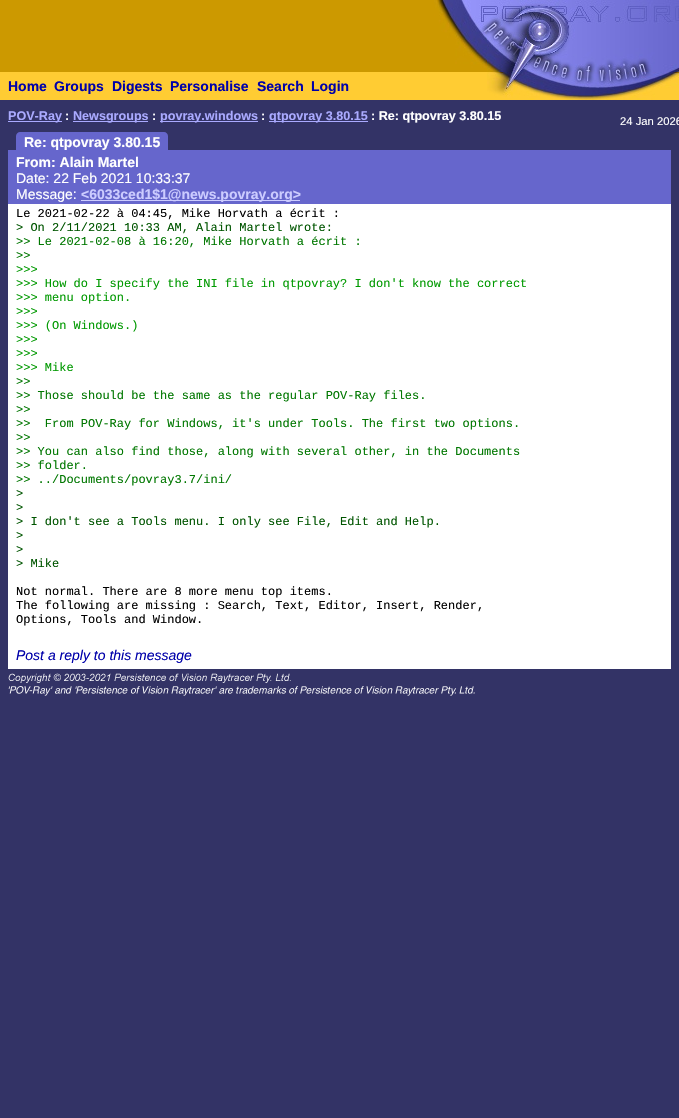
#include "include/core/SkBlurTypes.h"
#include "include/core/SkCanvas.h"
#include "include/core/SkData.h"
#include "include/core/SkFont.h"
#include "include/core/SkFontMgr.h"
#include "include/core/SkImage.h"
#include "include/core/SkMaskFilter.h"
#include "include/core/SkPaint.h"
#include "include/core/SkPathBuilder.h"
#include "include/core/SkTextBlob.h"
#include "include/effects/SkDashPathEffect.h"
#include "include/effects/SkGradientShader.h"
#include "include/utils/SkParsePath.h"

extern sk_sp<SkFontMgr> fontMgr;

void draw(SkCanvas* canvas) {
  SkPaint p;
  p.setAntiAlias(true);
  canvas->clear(SkColorSetRGB(51, 51, 102));
  p.setColor(SkColorSetRGB(204, 153, 0));
  canvas->drawRect(SkRect::MakeLTRB(0, 0, 487, 72), p);
  canvas->drawImageRect(SkImages::DeferredFromEncodedData(SkData::MakeFromFileName("images/1.png")), SkRect::MakeLTRB(434, 0, 487, 68), SkSamplingOptions());
  canvas->drawImageRect(SkImages::DeferredFromEncodedData(SkData::MakeFromFileName("images/2.png")), SkRect::MakeLTRB(487, 0, 527, 72), SkSamplingOptions());
  canvas->drawImageRect(SkImages::DeferredFromEncodedData(SkData::MakeFromFileName("images/3.png")), SkRect::MakeLTRB(527, 0, 679, 72), SkSamplingOptions());
  p.setColor(SkColorSetRGB(255, 204, 51));
  canvas->drawRect(SkRect::MakeLTRB(0, 72, 487, 100), p);
  canvas->drawRect(SkRect::MakeLTRB(487, 98, 527, 100), p);
  canvas->drawImageRect(SkImages::DeferredFromEncodedData(SkData::MakeFromFileName("images/4.png")), SkRect::MakeLTRB(487, 72, 527, 98), SkSamplingOptions());
  canvas->drawImageRect(SkImages::DeferredFromEncodedData(SkData::MakeFromFileName("images/5.png")), SkRect::MakeLTRB(527, 72, 679, 100), SkSamplingOptions());
  p.setColor(SkColorSetRGB(170, 170, 255));
  canvas->drawRect(SkRect::MakeLTRB(8, 121, 62, 122), p);
  canvas->drawRect(SkRect::MakeLTRB(73, 121, 148, 122), p);
  canvas->drawRect(SkRect::MakeLTRB(160, 121, 258, 122), p);
  canvas->drawRect(SkRect::MakeLTRB(269, 121, 368, 122), p);
  p.setColor(SkColorSetRGB(102, 102, 204));
  canvas->drawPath(SkPathBuilder().moveTo(20, 132).lineTo(164, 132).cubicTo(166, 132, 168, 134, 168, 136).lineTo(168, 150).lineTo(16, 150).lineTo(16, 136).cubicTo(16, 134, 18, 132, 20, 132).close().detach(), p);
  canvas->drawRect(SkRect::MakeLTRB(8, 150, 671, 154), p);
  canvas->drawRect(SkRect::MakeLTRB(8, 154, 671, 204), p);
  p.setColor(SkColorSetRGB(204, 204, 255));
  canvas->drawRect(SkRect::MakeLTRB(81, 200, 300, 201), p);
  p.setColor(SK_ColorWHITE);
  canvas->drawRect(SkRect::MakeLTRB(8, 204, 671, 206), p);
  canvas->drawRect(SkRect::MakeLTRB(8, 206, 671, 669), p);
  canvas->drawImageRect(SkImages::DeferredFromEncodedData(SkData::MakeFromFileName("images/6.png")), SkRect::MakeLTRB(8, 673, 475, 696), SkSamplingOptions());
  SkFont font1(fontMgr->matchFamilyStyle("Liberation Sans", SkFontStyle::Bold()), 14);
  font1.setSubpixel(true);
  p.setColor(SkColorSetRGB(0, 0, 170));
  canvas->drawString("Home", 8, 91, font1, p);
  canvas->drawString("Groups", 54, 91, font1, p);
  canvas->drawString("Digests", 112, 91, font1, p);
  canvas->drawString("Personalise", 170, 91, font1, p);
  canvas->drawString("Search", 257, 91, font1, p);
  canvas->drawString("Login", 311, 91, font1, p);
  SkFont font2(fontMgr->matchFamilyStyle("Liberation Sans", SkFontStyle::Bold()), 12.6f);
  font2.setSubpixel(true);
  p.setColor(SkColorSetRGB(170, 170, 255));
  canvas->drawString("POV-Ray", 8, 120, font2, p);
  p.setColor(SK_ColorWHITE);
  canvas->drawString(":", 65, 120, font2, p);
  p.setColor(SkColorSetRGB(170, 170, 255));
  canvas->drawString("Newsgroups", 73, 120, font2, p);
  p.setColor(SK_ColorWHITE);
  canvas->drawString(":", 152, 120, font2, p);
  p.setColor(SkColorSetRGB(170, 170, 255));
  canvas->drawString("povray.windows", 160, 120, font2, p);
  p.setColor(SK_ColorWHITE);
  canvas->drawString(":", 261, 120, font2, p);
  p.setColor(SkColorSetRGB(170, 170, 255));
  canvas->drawString("qtpovray 3.80.15", 269, 120, font2, p);
  p.setColor(SK_ColorWHITE);
  canvas->drawString(": Re: qtpovray 3.80.15", 371, 120, font2, p);
  SkFont font3(fontMgr->matchFamilyStyle("Liberation Sans", SkFontStyle::Normal()), 11.25f);
  font3.setSubpixel(true);
  canvas->drawString("24 Jan 2026", 620, 125, font3, p);
  canvas->drawString("Re: qtpovray 3.80.15", 24, 147, font1, p);
  canvas->drawString("From: Alain Martel", 16, 167, font1, p);
  SkFont font4(fontMgr->matchFamilyStyle("Liberation Sans", SkFontStyle::Normal()), 14);
  font4.setSubpixel(true);
  canvas->drawString("Date: 22 Feb 2021 10:33:37", 16, 183, font4, p);
  canvas->drawString("Message:", 16, 199, font4, p);
  p.setColor(SkColorSetRGB(204, 204, 255));
  canvas->drawString("<6033ced1$1@news.povray.org>", 81, 199, font1, p);
  SkFont font5(fontMgr->matchFamilyStyle("Liberation Mono", SkFontStyle::Normal()), 12);
  font5.setSubpixel(true);
  p.setColor(SK_ColorBLACK);
  canvas->drawString("Le 2021-02-22 à 04:45, Mike Horvath a écrit :", 16, 217, font5, p);
  p.setColor(SkColorSetRGB(0, 85, 0));
  canvas->drawString("> On 2/11/2021 10:33 AM, Alain Martel wrote:", 16, 231, font5, p);
  p.setColor(SkColorSetRGB(0, 119, 0));
  canvas->drawString(">> Le 2021-02-08 à 16:20, Mike Horvath a écrit :", 16, 245, font5, p);
  canvas->drawString(">>", 16, 259, font5, p);
  p.setColor(SkColorSetRGB(0, 153, 0));
  canvas->drawString(">>>", 16, 273, font5, p);
  canvas->drawString(">>> How do I specify the INI file in qtpovray? I don't know the correct", 16, 287, font5, p);
  canvas->drawString(">>> menu option.", 16, 301, font5, p);
  canvas->drawString(">>>", 16, 315, font5, p);
  canvas->drawString(">>> (On Windows.)", 16, 329, font5, p);
  canvas->drawString(">>>", 16, 343, font5, p);
  canvas->drawString(">>>", 16, 357, font5, p);
  canvas->drawString(">>> Mike", 16, 371, font5, p);
  p.setColor(SkColorSetRGB(0, 119, 0));
  canvas->drawString(">>", 16, 385, font5, p);
  canvas->drawString(">> Those should be the same as the regular POV-Ray files.", 16, 399, font5, p);
  canvas->drawString(">>", 16, 413, font5, p);
  canvas->drawString(">>  From POV-Ray for Windows, it's under Tools. The first two options.", 16, 427, font5, p);
  canvas->drawString(">>", 16, 441, font5, p);
  canvas->drawString(">> You can also find those, along with several other, in the Documents", 16, 455, font5, p);
  canvas->drawString(">> folder.", 16, 469, font5, p);
  canvas->drawString(">> ../Documents/povray3.7/ini/", 16, 483, font5, p);
  p.setColor(SkColorSetRGB(0, 85, 0));
  canvas->drawString(">", 16, 497, font5, p);
  canvas->drawString(">", 16, 511, font5, p);
  canvas->drawString("> I don't see a Tools menu. I only see File, Edit and Help.", 16, 525, font5, p);
  canvas->drawString(">", 16, 539, font5, p);
  canvas->drawString(">", 16, 553, font5, p);
  canvas->drawString("> Mike", 16, 567, font5, p);
  p.setColor(SK_ColorBLACK);
  canvas->drawString("Not normal. There are 8 more menu top items.", 16, 595, font5, p);
  canvas->drawString("The following are missing : Search, Text, Editor, Insert, Render,", 16, 609, font5, p);
  canvas->drawString("Options, Tools and Window.", 16, 623, font5, p);
  SkFont font6(fontMgr->matchFamilyStyle("Liberation Sans", SkFontStyle::Italic()), 14);
  font6.setSubpixel(true);
  p.setColor(SkColorSetRGB(0, 0, 170));
  canvas->drawString("Post a reply to this message", 16, 660, font6, p);
}
